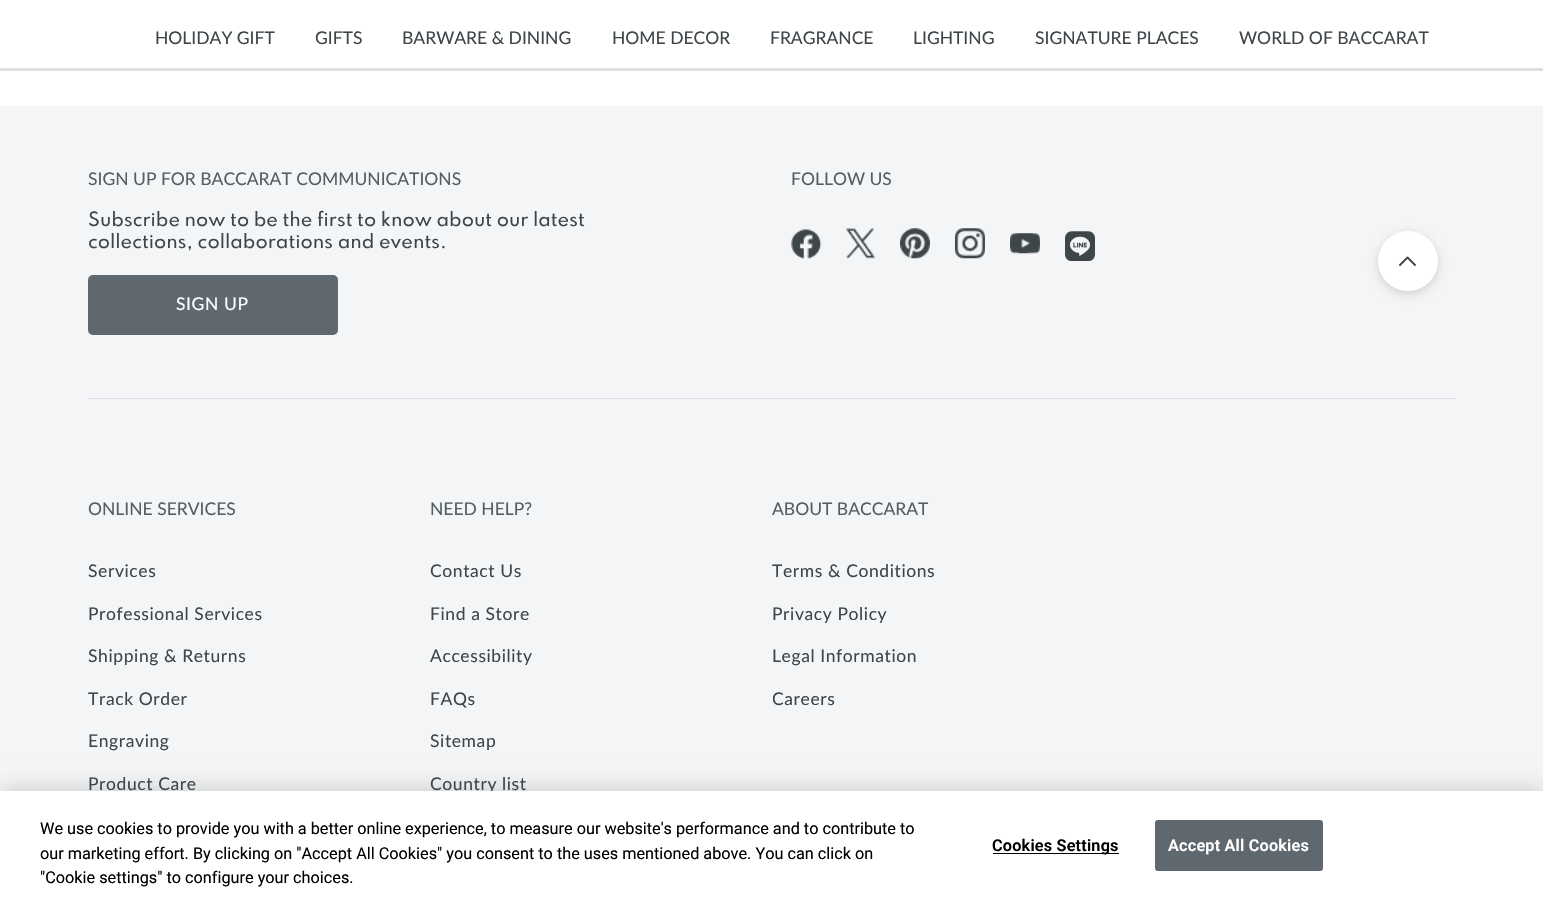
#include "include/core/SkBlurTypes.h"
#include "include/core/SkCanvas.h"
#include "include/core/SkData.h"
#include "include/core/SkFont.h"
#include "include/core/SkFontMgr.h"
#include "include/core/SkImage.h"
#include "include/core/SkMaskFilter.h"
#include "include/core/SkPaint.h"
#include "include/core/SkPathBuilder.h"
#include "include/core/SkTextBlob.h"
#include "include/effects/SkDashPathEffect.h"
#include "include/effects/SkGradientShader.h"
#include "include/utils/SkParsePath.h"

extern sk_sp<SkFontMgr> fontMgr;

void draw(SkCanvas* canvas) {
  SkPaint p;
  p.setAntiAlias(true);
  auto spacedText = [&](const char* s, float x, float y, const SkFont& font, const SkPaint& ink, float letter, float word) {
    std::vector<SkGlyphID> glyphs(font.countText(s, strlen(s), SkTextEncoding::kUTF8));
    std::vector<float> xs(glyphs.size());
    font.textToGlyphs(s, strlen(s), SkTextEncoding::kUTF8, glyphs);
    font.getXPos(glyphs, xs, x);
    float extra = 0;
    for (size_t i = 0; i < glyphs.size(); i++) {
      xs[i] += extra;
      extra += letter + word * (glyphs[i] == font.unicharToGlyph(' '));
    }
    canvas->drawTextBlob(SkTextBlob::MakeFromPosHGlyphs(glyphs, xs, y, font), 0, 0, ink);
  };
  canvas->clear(SK_ColorWHITE);
  p.setColor(SkColorSetRGB(222, 224, 227));
  canvas->drawRect(SkRect::MakeLTRB(0, 68, 1543, 71), p);
  p.setColor(SkColorSetRGB(244, 245, 246));
  canvas->drawRect(SkRect::MakeLTRB(0, 106, 1543, 791), p);
  p.setColor(SkColorSetRGB(222, 224, 227));
  canvas->drawRect(SkRect::MakeLTRB(88, 398, 1456, 399), p);
  p.setColor(SkColorSetRGB(95, 103, 111));
  canvas->drawRoundRect(SkRect::MakeLTRB(88, 275, 338, 335), 5, 5, p);
  canvas->drawImageRect(SkImages::DeferredFromEncodedData(SkData::MakeFromFileName("images/1.png")), SkRect::MakeLTRB(791, 229, 822, 259), SkSamplingOptions());
  canvas->drawImageRect(SkImages::DeferredFromEncodedData(SkData::MakeFromFileName("images/2.png")), SkRect::MakeLTRB(846, 228, 875, 259), SkSamplingOptions());
  canvas->drawImageRect(SkImages::DeferredFromEncodedData(SkData::MakeFromFileName("images/3.png")), SkRect::MakeLTRB(900, 228, 930, 259), SkSamplingOptions());
  canvas->drawImageRect(SkImages::DeferredFromEncodedData(SkData::MakeFromFileName("images/4.png")), SkRect::MakeLTRB(955, 228, 985, 259), SkSamplingOptions());
  canvas->drawImageRect(SkImages::DeferredFromEncodedData(SkData::MakeFromFileName("images/5.png")), SkRect::MakeLTRB(1010, 233, 1040, 254), SkSamplingOptions());
  canvas->drawImageRect(SkImages::DeferredFromEncodedData(SkData::MakeFromFileName("images/6.png")), SkRect::MakeLTRB(1065, 231, 1095, 261), SkSamplingOptions());
  p.setColor(SkColorSetARGB(38, 0, 0, 0));
  p.setMaskFilter(SkMaskFilter::MakeBlur(kNormal_SkBlurStyle, 5));
  canvas->drawRoundRect(SkRect::MakeLTRB(1378, 234, 1438, 294), 30, 30, p);
  p.setMaskFilter(nullptr);
  p.setColor(SK_ColorWHITE);
  canvas->drawCircle(1408, 261, 30, p);
  p.setStyle(SkPaint::kStroke_Style);
  p.setStrokeWidth(1.9f);
  p.setStrokeCap(SkPaint::kRound_Cap);
  p.setStrokeJoin(SkPaint::kRound_Join);
  p.setColor(SkColorSetRGB(62, 70, 74));
  canvas->drawPath(SkPathBuilder().moveTo(1415, 265).lineTo(1407.5f, 257.5f).lineTo(1400, 265).detach(), p);
  p.setStyle(SkPaint::kFill_Style);
  p.setColor(SkColorSetARGB(51, 0, 0, 0));
  p.setMaskFilter(SkMaskFilter::MakeBlur(kNormal_SkBlurStyle, 11));
  canvas->drawRect(SkRect::MakeLTRB(0, 791, 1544, 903), p);
  p.setMaskFilter(nullptr);
  SkFont font1(fontMgr->matchFamilyStyle("Lato", SkFontStyle::Normal()), 17.5f);
  font1.setSubpixel(true);
  p.setColor(SkColorSetRGB(62, 70, 74));
  canvas->drawString("HOLIDAY GIFT", 155, 44, font1, p);
  canvas->drawString("GIFTS", 315, 44, font1, p);
  canvas->drawString("BARWARE & DINING", 402, 44, font1, p);
  canvas->drawString("HOME DECOR", 612, 44, font1, p);
  canvas->drawString("FRAGRANCE", 770, 44, font1, p);
  canvas->drawString("LIGHTING", 913, 44, font1, p);
  canvas->drawString("SIGNATURE PLACES", 1035, 44, font1, p);
  canvas->drawString("WORLD OF BACCARAT", 1239, 44, font1, p);
  p.setColor(SkColorSetRGB(84, 95, 99));
  canvas->drawString("SIGN UP FOR BACCARAT COMMUNICATIONS", 88, 185, font1, p);
  SkFont font2(fontMgr->matchFamilyStyle("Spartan", SkFontStyle(500, SkFontStyle::kNormal_Width, SkFontStyle::kUpright_Slant)), 17.5f);
  font2.setSubpixel(true);
  p.setColor(SkColorSetRGB(62, 70, 74));
  canvas->drawString("Subscribe now to be the first to know about our latest", 88, 226, font2, p);
  canvas->drawString("collections, collaborations and events.", 88, 248, font2, p);
  p.setColor(SK_ColorWHITE);
  spacedText("SIGN UP", 176, 310, font1, p, 0.6f, 0);
  p.setColor(SkColorSetRGB(84, 95, 99));
  canvas->drawString("FOLLOW US", 791, 185, font1, p);
  canvas->drawString("ONLINE SERVICES", 88, 515, font1, p);
  p.setColor(SkColorSetRGB(62, 70, 74));
  spacedText("Services", 88, 577, font1, p, 0.6f, 0);
  spacedText("Professional Services", 88, 620, font1, p, 0.6f, 0);
  spacedText("Shipping & Returns", 88, 662, font1, p, 0.6f, 0);
  spacedText("Track Order", 88, 705, font1, p, 0.6f, 0);
  spacedText("Engraving", 88, 747, font1, p, 0.6f, 0);
  spacedText("Product Care", 88, 790, font1, p, 0.6f, 0);
  p.setColor(SkColorSetRGB(84, 95, 99));
  canvas->drawString("NEED HELP?", 430, 515, font1, p);
  p.setColor(SkColorSetRGB(62, 70, 74));
  spacedText("Contact Us", 430, 577, font1, p, 0.6f, 0);
  spacedText("Find a Store", 430, 620, font1, p, 0.6f, 0);
  spacedText("Accessibility", 430, 662, font1, p, 0.6f, 0);
  spacedText("FAQs", 430, 705, font1, p, 0.6f, 0);
  spacedText("Sitemap", 430, 747, font1, p, 0.6f, 0);
  spacedText("Country list", 430, 790, font1, p, 0.6f, 0);
  p.setColor(SkColorSetRGB(84, 95, 99));
  canvas->drawString("ABOUT BACCARAT", 772, 515, font1, p);
  p.setColor(SkColorSetRGB(62, 70, 74));
  spacedText("Terms & Conditions", 772, 577, font1, p, 0.6f, 0);
  spacedText("Privacy Policy", 772, 620, font1, p, 0.6f, 0);
  spacedText("Legal Information", 772, 662, font1, p, 0.6f, 0);
  canvas->save();
  canvas->clipRect(SkRect::MakeLTRB(773, 561, 1095, 731));
  spacedText("Careers", 772, 705, font1, p, 0.6f, 0);
  canvas->restore();
  p.setColor(SK_ColorWHITE);
  canvas->drawRect(SkRect::MakeLTRB(0, 791, 1543, 902), p);
  SkFont font3(fontMgr->matchFamilyStyle("Roboto", SkFontStyle::Normal()), 16.25f);
  font3.setSubpixel(true);
  p.setColor(SK_ColorBLACK);
  canvas->drawString("We use cookies to provide you with a better online experience, to measure our website's performance and to contribute to", 40, 834, font3, p);
  canvas->drawString("our marketing effort. By clicking on \"Accept All Cookies\" you consent to the uses mentioned above. You can click on", 40, 859, font3, p);
  canvas->drawString("\"Cookie settings\" to configure your choices.", 40, 883, font3, p);
  canvas->drawRect(SkRect::MakeLTRB(993, 853, 1119, 854), p);
  SkFont font4(fontMgr->matchFamilyStyle("Roboto", SkFontStyle(600, SkFontStyle::kNormal_Width, SkFontStyle::kUpright_Slant)), 16.25f);
  font4.setSubpixel(true);
  spacedText("Cookies Settings", 992, 851, font4, p, 0.2f, 0);
  p.setColor(SkColorSetRGB(95, 103, 111));
  canvas->drawRoundRect(SkRect::MakeLTRB(1155.5f, 820.5f, 1322.5f, 870.5f), 2, 2, p);
  p.setStyle(SkPaint::kStroke_Style);
  p.setStrokeWidth(1);
  p.setStrokeCap(SkPaint::kButt_Cap);
  p.setStrokeJoin(SkPaint::kMiter_Join);
  canvas->drawRoundRect(SkRect::MakeLTRB(1155.5f, 820.5f, 1322.5f, 870.5f), 2, 2, p);
  p.setStyle(SkPaint::kFill_Style);
  p.setColor(SK_ColorWHITE);
  spacedText("Accept All Cookies", 1168, 851, font4, p, 0.2f, 0);
}
